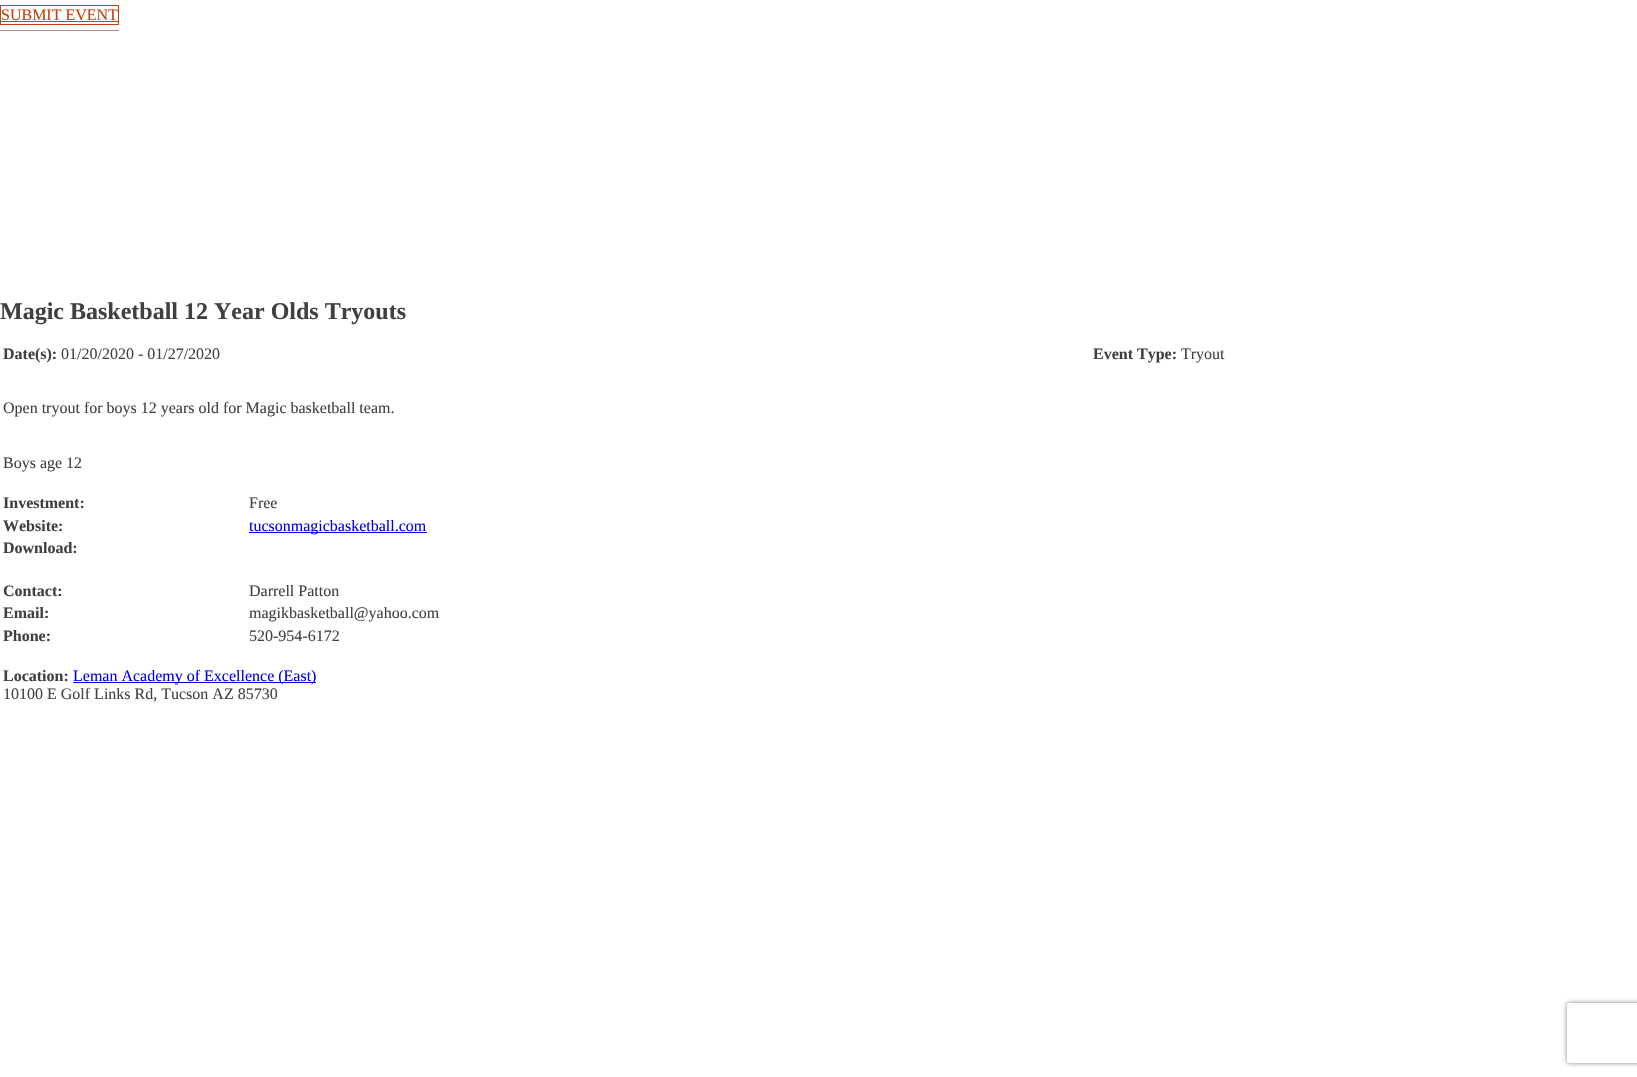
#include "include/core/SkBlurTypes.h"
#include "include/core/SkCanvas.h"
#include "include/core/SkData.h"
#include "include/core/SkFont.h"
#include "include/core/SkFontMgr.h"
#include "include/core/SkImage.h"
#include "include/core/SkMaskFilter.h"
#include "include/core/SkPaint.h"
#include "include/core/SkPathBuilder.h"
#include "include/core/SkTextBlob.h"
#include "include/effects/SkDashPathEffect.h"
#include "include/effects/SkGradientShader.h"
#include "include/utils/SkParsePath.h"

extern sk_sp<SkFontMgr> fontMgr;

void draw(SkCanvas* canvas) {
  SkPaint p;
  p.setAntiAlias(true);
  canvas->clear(SK_ColorWHITE);
  p.setColor(SkColorSetRGB(153, 153, 153));
  canvas->drawRect(SkRect::MakeLTRB(0, 30, 119, 31), p);
  p.setStyle(SkPaint::kStroke_Style);
  p.setStrokeWidth(1);
  p.setColor(SkColorSetRGB(196, 66, 8));
  canvas->drawRect(SkRect::MakeLTRB(0.5f, 5.5f, 118.5f, 24.5f), p);
  p.setStyle(SkPaint::kFill_Style);
  canvas->drawRect(SkRect::MakeLTRB(1, 21, 118, 22), p);
  p.setColor(SkColorSetRGB(0, 0, 238));
  canvas->drawRect(SkRect::MakeLTRB(249, 532, 427, 533), p);
  canvas->drawRect(SkRect::MakeLTRB(73, 682, 316, 683), p);
  canvas->save();
  canvas->clipPath(SkPathBuilder(SkPathFillType::kEvenOdd).moveTo(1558, 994).lineTo(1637, 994).lineTo(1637, 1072).lineTo(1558, 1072).close().moveTo(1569, 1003).lineTo(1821, 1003).cubicTo(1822, 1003, 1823, 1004, 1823, 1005).lineTo(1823, 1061).cubicTo(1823, 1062, 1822, 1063, 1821, 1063).lineTo(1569, 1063).cubicTo(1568, 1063, 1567, 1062, 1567, 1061).lineTo(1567, 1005).cubicTo(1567, 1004, 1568, 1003, 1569, 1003).close().detach(), true);
  p.setColor(SkColorSetRGB(128, 128, 128));
  p.setMaskFilter(SkMaskFilter::MakeBlur(kNormal_SkBlurStyle, 2.5f));
  canvas->drawRoundRect(SkRect::MakeLTRB(1567, 1003, 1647, 1063), 2, 2, p);
  p.setMaskFilter(nullptr);
  canvas->restore();
  SkFont font1(fontMgr->matchFamilyStyle("Liberation Serif", SkFontStyle::Normal()), 16);
  font1.setSubpixel(true);
  p.setColor(SkColorSetRGB(196, 66, 8));
  canvas->drawString("SUBMIT EVENT", 1, 20, font1, p);
  SkFont font2(fontMgr->matchFamilyStyle("Liberation Serif", SkFontStyle::Bold()), 24);
  font2.setSubpixel(true);
  p.setColor(SkColorSetRGB(64, 64, 64));
  canvas->drawString("Magic Basketball 12 Year Olds Tryouts", 0, 319, font2, p);
  SkFont font3(fontMgr->matchFamilyStyle("Liberation Serif", SkFontStyle::Bold()), 16);
  font3.setSubpixel(true);
  canvas->drawString("Date(s):", 3, 359, font3, p);
  canvas->drawString("01/20/2020 - 01/27/2020", 61, 359, font1, p);
  canvas->drawString("Event Type:", 1093, 359, font3, p);
  canvas->drawString("Tryout", 1181, 359, font1, p);
  canvas->drawString("Open tryout for boys 12 years old for Magic basketball team.", 3, 413, font1, p);
  canvas->drawString("Boys age 12", 3, 468, font1, p);
  canvas->drawString("Investment:", 3, 508, font3, p);
  canvas->drawString("Free", 249, 508, font1, p);
  canvas->drawString("Website:", 3, 531, font3, p);
  p.setColor(SkColorSetRGB(0, 0, 238));
  canvas->drawString("tucsonmagicbasketball.com", 249, 531, font1, p);
  p.setColor(SkColorSetRGB(64, 64, 64));
  canvas->drawString("Download:", 3, 553, font3, p);
  canvas->drawString("Contact:", 3, 596, font3, p);
  canvas->drawString("Darrell Patton", 249, 596, font1, p);
  canvas->drawString("Email:", 3, 618, font3, p);
  canvas->drawString("magikbasketball@yahoo.com", 249, 618, font1, p);
  canvas->drawString("Phone:", 3, 641, font3, p);
  canvas->drawString("520-954-6172", 249, 641, font1, p);
  canvas->drawString("Location:", 3, 681, font3, p);
  p.setColor(SkColorSetRGB(0, 0, 238));
  canvas->drawString("Leman Academy of Excellence (East)", 73, 681, font1, p);
  p.setColor(SkColorSetRGB(64, 64, 64));
  canvas->drawString("10100 E Golf Links Rd, Tucson AZ 85730", 3, 699, font1, p);
}
